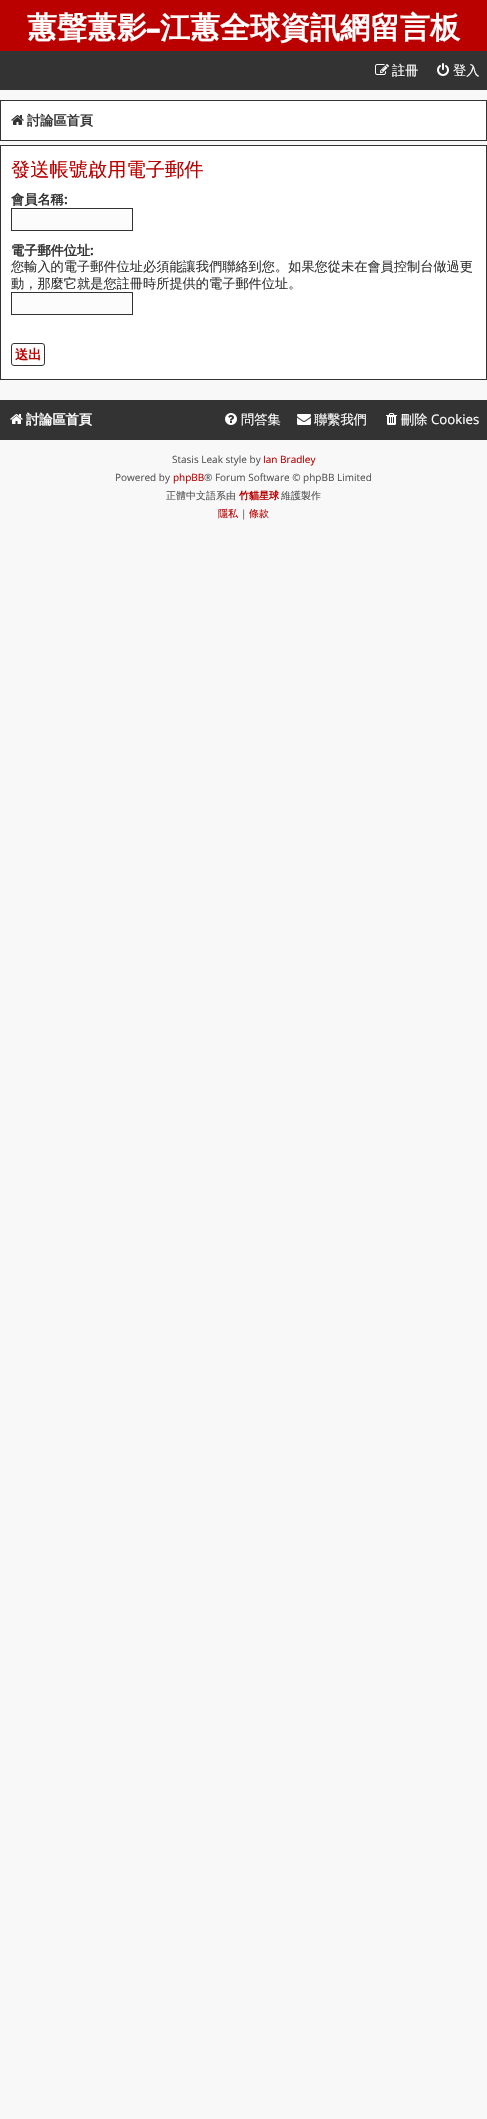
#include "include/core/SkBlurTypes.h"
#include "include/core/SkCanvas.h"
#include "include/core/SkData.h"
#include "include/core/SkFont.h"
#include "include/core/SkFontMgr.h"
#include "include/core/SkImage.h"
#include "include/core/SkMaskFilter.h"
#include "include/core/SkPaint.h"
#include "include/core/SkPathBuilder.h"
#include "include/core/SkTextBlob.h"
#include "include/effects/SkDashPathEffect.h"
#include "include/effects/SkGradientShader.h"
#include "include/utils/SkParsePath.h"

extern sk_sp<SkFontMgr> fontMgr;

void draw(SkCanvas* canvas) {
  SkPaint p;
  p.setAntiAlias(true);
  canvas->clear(SkColorSetRGB(248, 248, 248));
  p.setColor(SkColorSetRGB(187, 0, 0));
  canvas->drawRect(SkRect::MakeLTRB(0, 0, 487, 51), p);
  p.setColor(SkColorSetRGB(51, 51, 51));
  canvas->drawRect(SkRect::MakeLTRB(0, 51, 487, 90), p);
  canvas->drawImageRect(SkImages::DeferredFromEncodedData(SkData::MakeFromFileName("images/1.png")), SkRect::MakeLTRB(375, 64, 389, 75), SkSamplingOptions());
  canvas->drawImageRect(SkImages::DeferredFromEncodedData(SkData::MakeFromFileName("images/2.png")), SkRect::MakeLTRB(437, 63, 449, 76), SkSamplingOptions());
  p.setColor(SK_ColorWHITE);
  canvas->drawRect(SkRect::MakeLTRB(0.5f, 100.5f, 486.5f, 140.5f), p);
  p.setStyle(SkPaint::kStroke_Style);
  p.setStrokeWidth(1);
  p.setColor(SkColorSetRGB(51, 51, 51));
  canvas->drawRect(SkRect::MakeLTRB(0.5f, 100.5f, 486.5f, 140.5f), p);
  canvas->drawImageRect(SkImages::DeferredFromEncodedData(SkData::MakeFromFileName("images/3.png")), SkRect::MakeLTRB(11, 115, 24, 125), SkSamplingOptions());
  p.setStyle(SkPaint::kFill_Style);
  p.setColor(SK_ColorWHITE);
  canvas->drawRect(SkRect::MakeLTRB(0.5f, 145.5f, 486.5f, 379.5f), p);
  p.setStyle(SkPaint::kStroke_Style);
  p.setColor(SkColorSetRGB(51, 51, 51));
  canvas->drawRect(SkRect::MakeLTRB(0.5f, 145.5f, 486.5f, 379.5f), p);
  p.setStyle(SkPaint::kFill_Style);
  p.setColor(SkColorSetRGB(252, 252, 252));
  canvas->drawRect(SkRect::MakeLTRB(11.5f, 208.5f, 132.5f, 230.5f), p);
  p.setStyle(SkPaint::kStroke_Style);
  p.setColor(SkColorSetRGB(51, 51, 51));
  canvas->drawRect(SkRect::MakeLTRB(11.5f, 208.5f, 132.5f, 230.5f), p);
  p.setStyle(SkPaint::kFill_Style);
  p.setColor(SkColorSetRGB(252, 252, 252));
  canvas->drawRect(SkRect::MakeLTRB(11.5f, 292.5f, 132.5f, 314.5f), p);
  p.setStyle(SkPaint::kStroke_Style);
  p.setColor(SkColorSetRGB(51, 51, 51));
  canvas->drawRect(SkRect::MakeLTRB(11.5f, 292.5f, 132.5f, 314.5f), p);
  canvas->drawRoundRect(SkRect::MakeLTRB(11.5f, 343.5f, 44.5f, 365.5f), 2.5f, 2.5f, p);
  p.setStyle(SkPaint::kFill_Style);
  canvas->drawRect(SkRect::MakeLTRB(0, 400, 487, 440), p);
  canvas->drawImageRect(SkImages::DeferredFromEncodedData(SkData::MakeFromFileName("images/4.png")), SkRect::MakeLTRB(10, 414, 23, 424), SkSamplingOptions());
  canvas->drawImageRect(SkImages::DeferredFromEncodedData(SkData::MakeFromFileName("images/5.png")), SkRect::MakeLTRB(225, 413, 237, 425), SkSamplingOptions());
  canvas->drawImageRect(SkImages::DeferredFromEncodedData(SkData::MakeFromFileName("images/6.png")), SkRect::MakeLTRB(297, 414, 311, 425), SkSamplingOptions());
  canvas->drawImageRect(SkImages::DeferredFromEncodedData(SkData::MakeFromFileName("images/7.png")), SkRect::MakeLTRB(386, 413, 397, 425), SkSamplingOptions());
  SkFont font1(fontMgr->matchFamilyStyle("WenQuanYi Zen Hei", SkFontStyle::Bold()), 30);
  font1.setSubpixel(true);
  p.setColor(SK_ColorWHITE);
  canvas->drawString("蕙聲蕙影", 27, 38, font1, p);
  SkFont font2(fontMgr->matchFamilyStyle("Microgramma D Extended", SkFontStyle::Bold()), 30);
  font2.setSubpixel(true);
  canvas->drawString("-", 147, 38, font2, p);
  canvas->drawString("江蕙全球資訊網留言板", 160, 38, font1, p);
  SkFont font3(fontMgr->matchFamilyStyle("WenQuanYi Zen Hei", SkFontStyle(500, SkFontStyle::kNormal_Width, SkFontStyle::kUpright_Slant)), 13.2f);
  font3.setSubpixel(true);
  canvas->drawString("註冊", 392, 75, font3, p);
  canvas->drawString("登入", 453, 75, font3, p);
  SkFont font4(fontMgr->matchFamilyStyle("WenQuanYi Zen Hei", SkFontStyle::Bold()), 13.2f);
  font4.setSubpixel(true);
  p.setColor(SkColorSetRGB(51, 51, 51));
  canvas->drawString("討論區首頁", 27, 125, font4, p);
  SkFont font5(fontMgr->matchFamilyStyle("WenQuanYi Zen Hei", SkFontStyle(500, SkFontStyle::kNormal_Width, SkFontStyle::kUpright_Slant)), 19.25f);
  font5.setSubpixel(true);
  p.setColor(SkColorSetRGB(187, 0, 0));
  canvas->drawString("發送帳號啟用電子郵件", 11, 176, font5, p);
  p.setColor(SkColorSetRGB(51, 51, 51));
  canvas->drawString("會員名稱", 11, 204, font4, p);
  SkFont font6(fontMgr->matchFamilyStyle("Open Sans", SkFontStyle::Bold()), 13.2f);
  font6.setSubpixel(true);
  canvas->drawString(":", 64, 204, font6, p);
  canvas->drawString("電子郵件位址", 11, 255, font4, p);
  canvas->drawString(":", 90, 255, font6, p);
  canvas->drawString("您輸入的電子郵件位址必須能讓我們聯絡到您。如果您從未在會員控制台做過更", 11, 271, font3, p);
  canvas->drawString("動，那麼它就是您註冊時所提供的電子郵件位址。", 11, 288, font3, p);
  p.setColor(SkColorSetRGB(187, 0, 0));
  canvas->drawString("送出", 15, 359, font4, p);
  p.setColor(SK_ColorWHITE);
  canvas->drawString("討論區首頁", 26, 424, font4, p);
  canvas->drawString("問答集", 241, 424, font3, p);
  canvas->drawString("聯繫我們", 314, 424, font3, p);
  canvas->drawString("刪除", 401, 424, font3, p);
  SkFont font7(fontMgr->matchFamilyStyle("Open Sans", SkFontStyle::Normal()), 13.2f);
  font7.setSubpixel(true);
  canvas->drawString("Cookies", 431, 424, font7, p);
  SkFont font8(fontMgr->matchFamilyStyle("Open Sans", SkFontStyle::Normal()), 10);
  font8.setSubpixel(true);
  p.setColor(SkColorSetRGB(85, 85, 85));
  canvas->drawString("Stasis Leak style by", 172, 463, font8, p);
  p.setColor(SkColorSetRGB(187, 0, 0));
  canvas->drawString("Ian Bradley", 263, 463, font8, p);
  p.setColor(SkColorSetRGB(85, 85, 85));
  canvas->drawString("Powered by", 115, 481, font8, p);
  p.setColor(SkColorSetRGB(187, 0, 0));
  canvas->drawString("phpBB", 173, 481, font8, p);
  p.setColor(SkColorSetRGB(85, 85, 85));
  canvas->drawString("® Forum Software © phpBB Limited", 204, 481, font8, p);
  SkFont font9(fontMgr->matchFamilyStyle("WenQuanYi Zen Hei", SkFontStyle(500, SkFontStyle::kNormal_Width, SkFontStyle::kUpright_Slant)), 10);
  font9.setSubpixel(true);
  canvas->drawString("正體中文語系由", 166, 499, font9, p);
  SkFont font10(fontMgr->matchFamilyStyle("WenQuanYi Zen Hei", SkFontStyle::Bold()), 10);
  font10.setSubpixel(true);
  p.setColor(SkColorSetRGB(187, 0, 0));
  canvas->drawString("竹貓星球", 239, 499, font10, p);
  p.setColor(SkColorSetRGB(85, 85, 85));
  canvas->drawString("維護製作", 281, 499, font9, p);
  p.setColor(SkColorSetRGB(187, 0, 0));
  canvas->drawString("隱私", 218, 517, font9, p);
  p.setColor(SkColorSetRGB(85, 85, 85));
  canvas->drawString("|", 241, 517, font8, p);
  p.setColor(SkColorSetRGB(187, 0, 0));
  canvas->drawString("條款", 249, 517, font9, p);
}
